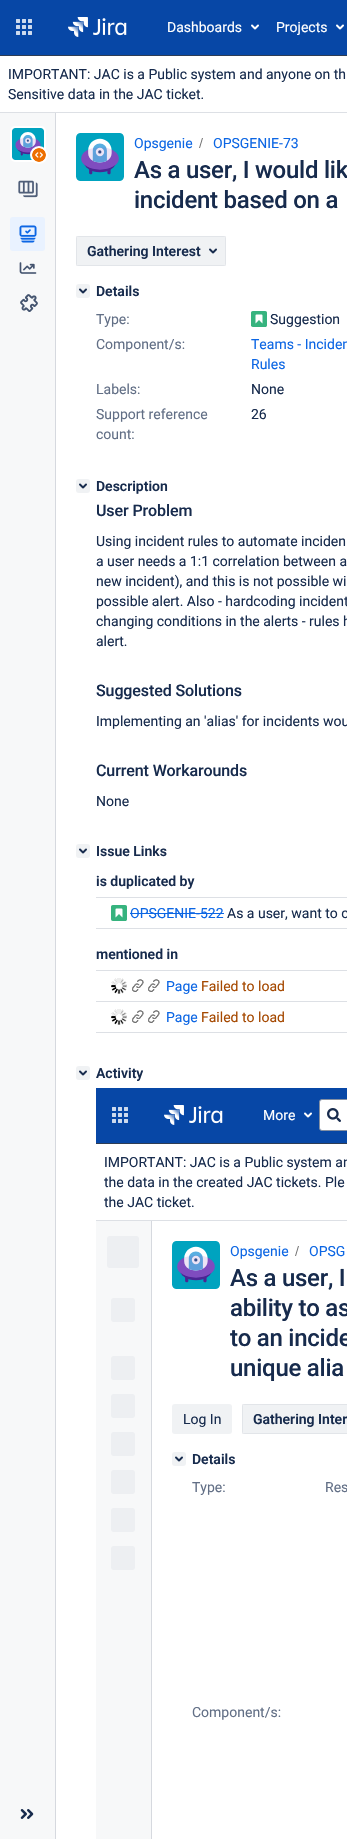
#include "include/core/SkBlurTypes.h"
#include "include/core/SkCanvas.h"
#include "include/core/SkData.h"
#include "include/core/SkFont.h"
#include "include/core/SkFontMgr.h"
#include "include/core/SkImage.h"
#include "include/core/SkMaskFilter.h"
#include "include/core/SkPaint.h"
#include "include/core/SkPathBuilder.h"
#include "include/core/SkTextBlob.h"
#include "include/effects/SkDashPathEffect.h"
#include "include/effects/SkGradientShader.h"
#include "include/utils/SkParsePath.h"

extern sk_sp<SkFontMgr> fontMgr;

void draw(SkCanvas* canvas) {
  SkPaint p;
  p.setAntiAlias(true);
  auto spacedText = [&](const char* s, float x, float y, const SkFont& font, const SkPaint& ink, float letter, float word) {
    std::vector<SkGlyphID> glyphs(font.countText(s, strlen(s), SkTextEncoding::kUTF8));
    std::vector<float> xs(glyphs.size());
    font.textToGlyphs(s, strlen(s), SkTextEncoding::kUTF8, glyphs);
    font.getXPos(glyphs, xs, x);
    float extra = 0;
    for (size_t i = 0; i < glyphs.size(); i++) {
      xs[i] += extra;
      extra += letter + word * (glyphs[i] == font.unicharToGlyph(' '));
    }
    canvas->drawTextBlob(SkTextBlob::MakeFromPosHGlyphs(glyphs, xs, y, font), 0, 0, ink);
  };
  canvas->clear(SK_ColorWHITE);
  p.setColor(SkColorSetRGB(7, 71, 166));
  canvas->drawRect(SkRect::MakeLTRB(0, 0, 347, 55), p);
  p.setColor(SkColorSetRGB(46, 61, 84));
  canvas->drawRect(SkRect::MakeLTRB(0, 55, 347, 56), p);
  canvas->drawImageRect(SkImages::DeferredFromEncodedData(SkData::MakeFromFileName("images/1.png")), SkRect::MakeLTRB(16, 19, 32, 35), SkSamplingOptions());
  canvas->drawImageRect(SkImages::DeferredFromEncodedData(SkData::MakeFromFileName("images/2.png")), SkRect::MakeLTRB(68, 17, 127, 37), SkSamplingOptions());
  canvas->drawImageRect(SkImages::DeferredFromEncodedData(SkData::MakeFromFileName("images/3.png")), SkRect::MakeLTRB(251, 24, 259, 30), SkSamplingOptions());
  canvas->drawImageRect(SkImages::DeferredFromEncodedData(SkData::MakeFromFileName("images/3.png")), SkRect::MakeLTRB(336, 24, 344, 30), SkSamplingOptions());
  p.setColor(SkColorSetRGB(221, 224, 229));
  canvas->drawRect(SkRect::MakeLTRB(0, 112, 347, 113), p);
  p.setColor(SkColorSetRGB(247, 248, 249));
  canvas->drawRect(SkRect::MakeLTRB(0, 113, 55, 1839), p);
  p.setColor(SkColorSetRGB(214, 217, 223));
  canvas->drawRect(SkRect::MakeLTRB(55, 113, 56, 1839), p);
  p.setStyle(SkPaint::kStroke_Style);
  p.setStrokeWidth(2);
  p.setColor(SK_ColorWHITE);
  canvas->drawRoundRect(SkRect::MakeLTRB(11, 127, 45, 161), 4, 4, p);
  canvas->drawImageRect(SkImages::DeferredFromEncodedData(SkData::MakeFromFileName("images/4.png")), SkRect::MakeLTRB(12, 128, 44, 160), SkSamplingOptions());
  p.setStyle(SkPaint::kFill_Style);
  canvas->drawCircle(39, 155, 9, p);
  canvas->drawImageRect(SkImages::DeferredFromEncodedData(SkData::MakeFromFileName("images/5.png")), SkRect::MakeLTRB(32, 148, 46, 162), SkSamplingOptions());
  canvas->drawImageRect(SkImages::DeferredFromEncodedData(SkData::MakeFromFileName("images/6.png")), SkRect::MakeLTRB(18, 180, 38, 198), SkSamplingOptions());
  p.setColor(SkColorSetRGB(233, 242, 255));
  canvas->drawRoundRect(SkRect::MakeLTRB(10, 217, 45, 251), 3, 3, p);
  canvas->drawImageRect(SkImages::DeferredFromEncodedData(SkData::MakeFromFileName("images/7.png")), SkRect::MakeLTRB(19, 225, 37, 243), SkSamplingOptions());
  canvas->drawImageRect(SkImages::DeferredFromEncodedData(SkData::MakeFromFileName("images/8.png")), SkRect::MakeLTRB(19, 262, 37, 274), SkSamplingOptions());
  canvas->drawImageRect(SkImages::DeferredFromEncodedData(SkData::MakeFromFileName("images/9.png")), SkRect::MakeLTRB(20, 294, 38, 312), SkSamplingOptions());
  canvas->drawImageRect(SkImages::DeferredFromEncodedData(SkData::MakeFromFileName("images/10.png")), SkRect::MakeLTRB(20, 1809, 34, 1819), SkSamplingOptions());
  canvas->drawImageRect(SkImages::DeferredFromEncodedData(SkData::MakeFromFileName("images/11.png")), SkRect::MakeLTRB(76, 133, 124, 181), SkSamplingOptions());
  p.setColor(SkColorSetRGB(112, 112, 112));
  canvas->drawPath(SkPathBuilder().moveTo(200, 148).lineTo(203, 138).lineTo(202, 138).lineTo(199, 148).close().detach(), p);
  p.setColor(SkColorSetRGB(240, 242, 244));
  canvas->drawRoundRect(SkRect::MakeLTRB(76, 236, 226, 266), 3, 3, p);
  p.setStyle(SkPaint::kStroke_Style);
  p.setStrokeWidth(1);
  p.setColor(SkColorSetARGB(15, 9, 30, 66));
  canvas->drawRect(SkRect::MakeLTRB(76.5f, 236.5f, 225.5f, 265.5f), p);
  canvas->drawImageRect(SkImages::DeferredFromEncodedData(SkData::MakeFromFileName("images/12.png")), SkRect::MakeLTRB(209, 248, 217, 254), SkSamplingOptions());
  p.setStyle(SkPaint::kFill_Style);
  p.setColor(SkColorSetRGB(240, 242, 244));
  canvas->drawRoundRect(SkRect::MakeLTRB(76, 284, 90, 298), 3, 3, p);
  canvas->drawImageRect(SkImages::DeferredFromEncodedData(SkData::MakeFromFileName("images/13.png")), SkRect::MakeLTRB(79, 288, 87, 294), SkSamplingOptions());
  canvas->drawImageRect(SkImages::DeferredFromEncodedData(SkData::MakeFromFileName("images/14.png")), SkRect::MakeLTRB(251, 311, 267, 327), SkSamplingOptions());
  canvas->drawRoundRect(SkRect::MakeLTRB(76, 479, 90, 493), 3, 3, p);
  canvas->drawImageRect(SkImages::DeferredFromEncodedData(SkData::MakeFromFileName("images/13.png")), SkRect::MakeLTRB(79, 483, 87, 489), SkSamplingOptions());
  canvas->drawRoundRect(SkRect::MakeLTRB(76, 844, 90, 858), 3, 3, p);
  canvas->drawImageRect(SkImages::DeferredFromEncodedData(SkData::MakeFromFileName("images/13.png")), SkRect::MakeLTRB(79, 848, 87, 854), SkSamplingOptions());
  p.setColor(SkColorSetRGB(221, 224, 229));
  canvas->drawRect(SkRect::MakeLTRB(96, 897, 347, 898), p);
  canvas->drawRect(SkRect::MakeLTRB(96, 928, 347, 929), p);
  canvas->drawImageRect(SkImages::DeferredFromEncodedData(SkData::MakeFromFileName("images/15.png")), SkRect::MakeLTRB(111, 905, 127, 921), SkSamplingOptions());
  p.setColor(SkColorSetRGB(12, 102, 228));
  canvas->drawRect(SkRect::MakeLTRB(130, 913, 224, 914), p);
  p.setColor(SkColorSetRGB(221, 224, 229));
  canvas->drawRect(SkRect::MakeLTRB(96, 970, 347, 971), p);
  canvas->drawRect(SkRect::MakeLTRB(96, 1001, 347, 1002), p);
  canvas->drawImageRect(SkImages::DeferredFromEncodedData(SkData::MakeFromFileName("images/16.png")), SkRect::MakeLTRB(111, 978, 127, 994), SkSamplingOptions());
  canvas->drawImageRect(SkImages::DeferredFromEncodedData(SkData::MakeFromFileName("images/17.png")), SkRect::MakeLTRB(132, 979, 144, 992), SkSamplingOptions());
  canvas->drawImageRect(SkImages::DeferredFromEncodedData(SkData::MakeFromFileName("images/17.png")), SkRect::MakeLTRB(148, 979, 160, 992), SkSamplingOptions());
  canvas->drawRect(SkRect::MakeLTRB(96, 1032, 347, 1033), p);
  canvas->drawImageRect(SkImages::DeferredFromEncodedData(SkData::MakeFromFileName("images/16.png")), SkRect::MakeLTRB(111, 1009, 127, 1025), SkSamplingOptions());
  canvas->drawImageRect(SkImages::DeferredFromEncodedData(SkData::MakeFromFileName("images/17.png")), SkRect::MakeLTRB(132, 1010, 144, 1023), SkSamplingOptions());
  canvas->drawImageRect(SkImages::DeferredFromEncodedData(SkData::MakeFromFileName("images/17.png")), SkRect::MakeLTRB(148, 1010, 160, 1023), SkSamplingOptions());
  p.setColor(SkColorSetRGB(240, 242, 244));
  canvas->drawRoundRect(SkRect::MakeLTRB(76, 1066, 90, 1080), 3, 3, p);
  canvas->drawImageRect(SkImages::DeferredFromEncodedData(SkData::MakeFromFileName("images/13.png")), SkRect::MakeLTRB(79, 1070, 87, 1076), SkSamplingOptions());
  p.setColor(SkColorSetRGB(7, 71, 166));
  canvas->drawRect(SkRect::MakeLTRB(96, 1088, 347, 1143), p);
  p.setColor(SkColorSetRGB(46, 61, 84));
  canvas->drawRect(SkRect::MakeLTRB(96, 1143, 347, 1144), p);
  canvas->drawImageRect(SkImages::DeferredFromEncodedData(SkData::MakeFromFileName("images/1.png")), SkRect::MakeLTRB(112, 1107, 128, 1123), SkSamplingOptions());
  canvas->drawImageRect(SkImages::DeferredFromEncodedData(SkData::MakeFromFileName("images/2.png")), SkRect::MakeLTRB(164, 1105, 223, 1125), SkSamplingOptions());
  canvas->drawImageRect(SkImages::DeferredFromEncodedData(SkData::MakeFromFileName("images/3.png")), SkRect::MakeLTRB(304, 1112, 312, 1118), SkSamplingOptions());
  p.setColor(SK_ColorWHITE);
  canvas->drawRoundRect(SkRect::MakeLTRB(319.5f, 1099.5f, 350.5f, 1130.5f), 2.5f, 2.5f, p);
  p.setStyle(SkPaint::kStroke_Style);
  p.setColor(SkColorSetRGB(133, 144, 162));
  canvas->drawRoundRect(SkRect::MakeLTRB(319.5f, 1099.5f, 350.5f, 1130.5f), 2.5f, 2.5f, p);
  canvas->drawImageRect(SkImages::DeferredFromEncodedData(SkData::MakeFromFileName("images/18.png")), SkRect::MakeLTRB(327, 1108, 341, 1122), SkSamplingOptions());
  p.setStyle(SkPaint::kFill_Style);
  p.setColor(SkColorSetRGB(221, 224, 229));
  canvas->drawRect(SkRect::MakeLTRB(96, 1220, 347, 1221), p);
  p.setColor(SkColorSetRGB(247, 248, 249));
  canvas->drawRect(SkRect::MakeLTRB(96, 1221, 151, 1839), p);
  p.setColor(SkColorSetRGB(214, 217, 223));
  canvas->drawRect(SkRect::MakeLTRB(151, 1221, 152, 1839), p);
  p.setColor(SkColorSetRGB(237, 239, 242));
  canvas->drawRoundRect(SkRect::MakeLTRB(107, 1236, 139, 1268), 3, 3, p);
  canvas->drawRoundRect(SkRect::MakeLTRB(111, 1298, 135, 1322), 3, 3, p);
  canvas->drawRoundRect(SkRect::MakeLTRB(111, 1356, 135, 1380), 3, 3, p);
  canvas->drawRoundRect(SkRect::MakeLTRB(111, 1394, 135, 1418), 3, 3, p);
  canvas->drawRoundRect(SkRect::MakeLTRB(111, 1432, 135, 1456), 3, 3, p);
  canvas->drawRoundRect(SkRect::MakeLTRB(111, 1470, 135, 1494), 3, 3, p);
  canvas->drawRoundRect(SkRect::MakeLTRB(111, 1508, 135, 1532), 3, 3, p);
  canvas->drawRoundRect(SkRect::MakeLTRB(111, 1546, 135, 1570), 3, 3, p);
  canvas->drawImageRect(SkImages::DeferredFromEncodedData(SkData::MakeFromFileName("images/11.png")), SkRect::MakeLTRB(172, 1241, 220, 1289), SkSamplingOptions());
  p.setColor(SkColorSetRGB(112, 112, 112));
  canvas->drawPath(SkPathBuilder().moveTo(296, 1256).lineTo(299, 1246).lineTo(298, 1246).lineTo(295, 1256).close().detach(), p);
  p.setColor(SkColorSetRGB(240, 242, 244));
  canvas->drawRoundRect(SkRect::MakeLTRB(172, 1404, 232, 1434), 3, 3, p);
  canvas->drawRoundRect(SkRect::MakeLTRB(242, 1404, 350, 1434), 3, 3, p);
  p.setStyle(SkPaint::kStroke_Style);
  p.setColor(SkColorSetARGB(15, 9, 30, 66));
  canvas->drawRect(SkRect::MakeLTRB(242.5f, 1404.5f, 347.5f, 1433.5f), p);
  p.setStyle(SkPaint::kFill_Style);
  p.setColor(SkColorSetRGB(240, 242, 244));
  canvas->drawRoundRect(SkRect::MakeLTRB(172, 1452, 186, 1466), 3, 3, p);
  canvas->drawImageRect(SkImages::DeferredFromEncodedData(SkData::MakeFromFileName("images/13.png")), SkRect::MakeLTRB(175, 1456, 183, 1462), SkSamplingOptions());
  SkFont font1(fontMgr->matchFamilyStyle("Roboto", SkFontStyle::Normal()), 14);
  font1.setSubpixel(true);
  p.setColor(SK_ColorWHITE);
  canvas->drawString("Dashboards", 167, 32, font1, p);
  canvas->drawString("Projects", 276, 32, font1, p);
  p.setColor(SkColorSetRGB(23, 43, 77));
  canvas->drawString("IMPORTANT: JAC is a Public system and anyone on th", 8, 79, font1, p);
  canvas->drawString("Sensitive data in the JAC ticket.", 8, 99, font1, p);
  p.setColor(SkColorSetRGB(12, 102, 228));
  canvas->drawString("Opsgenie", 134, 148, font1, p);
  canvas->drawString("OPSGENIE-73", 213, 148, font1, p);
  SkFont font2(fontMgr->matchFamilyStyle("Roboto", SkFontStyle(500, SkFontStyle::kNormal_Width, SkFontStyle::kUpright_Slant)), 24);
  font2.setSubpixel(true);
  p.setColor(SkColorSetRGB(23, 43, 77));
  spacedText("As a user, I would lik", 134, 178, font2, p, -0.25f, 0);
  spacedText("incident based on a", 134, 208, font2, p, -0.25f, 0);
  SkFont font3(fontMgr->matchFamilyStyle("Roboto", SkFontStyle(600, SkFontStyle::kNormal_Width, SkFontStyle::kUpright_Slant)), 14);
  font3.setSubpixel(true);
  canvas->drawString("Gathering Interest", 87, 256, font3, p);
  canvas->drawString("Details", 96, 296, font3, p);
  p.setColor(SkColorSetRGB(98, 111, 134));
  canvas->drawString("Type:", 96, 324, font1, p);
  p.setColor(SkColorSetRGB(23, 43, 77));
  canvas->drawString("Suggestion", 270, 324, font1, p);
  p.setColor(SkColorSetRGB(98, 111, 134));
  canvas->drawString("Component/s:", 96, 349, font1, p);
  p.setColor(SkColorSetRGB(12, 102, 228));
  canvas->drawString("Teams - Inciden", 251, 349, font1, p);
  canvas->drawString("Rules", 251, 369, font1, p);
  p.setColor(SkColorSetRGB(98, 111, 134));
  canvas->drawString("Labels:", 96, 394, font1, p);
  p.setColor(SkColorSetRGB(23, 43, 77));
  canvas->drawString("None", 251, 394, font1, p);
  p.setColor(SkColorSetRGB(98, 111, 134));
  canvas->drawString("Support reference", 96, 419, font1, p);
  canvas->drawString("count:", 96, 439, font1, p);
  p.setColor(SkColorSetRGB(23, 43, 77));
  canvas->drawString("26", 251, 419, font1, p);
  canvas->drawString("Description", 96, 491, font3, p);
  SkFont font4(fontMgr->matchFamilyStyle("Roboto", SkFontStyle(500, SkFontStyle::kNormal_Width, SkFontStyle::kUpright_Slant)), 16);
  font4.setSubpixel(true);
  spacedText("User Problem", 96, 516, font4, p, -0.1f, 0);
  canvas->drawString("Using incident rules to automate inciden", 96, 546, font1, p);
  canvas->drawString("a user needs a 1:1 correlation between a", 96, 566, font1, p);
  canvas->drawString("new incident), and this is not possible wi", 96, 586, font1, p);
  canvas->drawString("possible alert. Also - hardcoding incident", 96, 606, font1, p);
  canvas->drawString("changing conditions in the alerts - rules h", 96, 626, font1, p);
  canvas->drawString("alert.", 96, 646, font1, p);
  spacedText("Suggested Solutions", 96, 696, font4, p, -0.1f, 0);
  canvas->drawString("Implementing an 'alias' for incidents wou", 96, 726, font1, p);
  spacedText("Current Workarounds", 96, 776, font4, p, -0.1f, 0);
  canvas->drawString("None", 96, 806, font1, p);
  canvas->drawString("Issue Links", 96, 856, font3, p);
  canvas->drawString("is duplicated by", 96, 886, font3, p);
  p.setColor(SkColorSetRGB(12, 102, 228));
  canvas->drawString("OPSGENIE-522", 130, 918, font1, p);
  p.setColor(SkColorSetRGB(23, 43, 77));
  canvas->drawString("As a user, want to c", 227, 918, font1, p);
  canvas->drawString("mentioned in", 96, 959, font3, p);
  p.setColor(SkColorSetRGB(12, 102, 228));
  canvas->drawString("Page", 166, 991, font1, p);
  p.setColor(SkColorSetRGB(165, 72, 0));
  canvas->drawString("Failed to load", 201, 991, font1, p);
  p.setColor(SkColorSetRGB(12, 102, 228));
  canvas->drawString("Page", 166, 1022, font1, p);
  p.setColor(SkColorSetRGB(165, 72, 0));
  canvas->drawString("Failed to load", 201, 1022, font1, p);
  p.setColor(SkColorSetRGB(23, 43, 77));
  canvas->drawString("Activity", 96, 1078, font3, p);
  p.setColor(SK_ColorWHITE);
  canvas->drawString("More", 263, 1120, font1, p);
  p.setColor(SkColorSetRGB(23, 43, 77));
  canvas->drawString("IMPORTANT: JAC is a Public system an", 104, 1167, font1, p);
  canvas->drawString("the data in the created JAC tickets. Ple", 104, 1187, font1, p);
  canvas->drawString("the JAC ticket.", 104, 1207, font1, p);
  p.setColor(SkColorSetRGB(12, 102, 228));
  canvas->drawString("Opsgenie", 230, 1256, font1, p);
  canvas->drawString("OPSG", 309, 1256, font1, p);
  p.setColor(SkColorSetRGB(23, 43, 77));
  spacedText("As a user, I", 230, 1286, font2, p, -0.25f, 0);
  spacedText("ability to as", 230, 1316, font2, p, -0.25f, 0);
  spacedText("to an incide", 230, 1346, font2, p, -0.25f, 0);
  spacedText("unique alia", 230, 1376, font2, p, -0.25f, 0);
  canvas->drawString("Log In", 183, 1424, font1, p);
  canvas->drawString("Gathering Inter", 253, 1424, font3, p);
  canvas->drawString("Details", 192, 1464, font3, p);
  p.setColor(SkColorSetRGB(98, 111, 134));
  canvas->drawString("Type:", 192, 1492, font1, p);
  canvas->drawString("Res", 325, 1492, font1, p);
  canvas->drawString("Component/s:", 192, 1717, font1, p);
}
